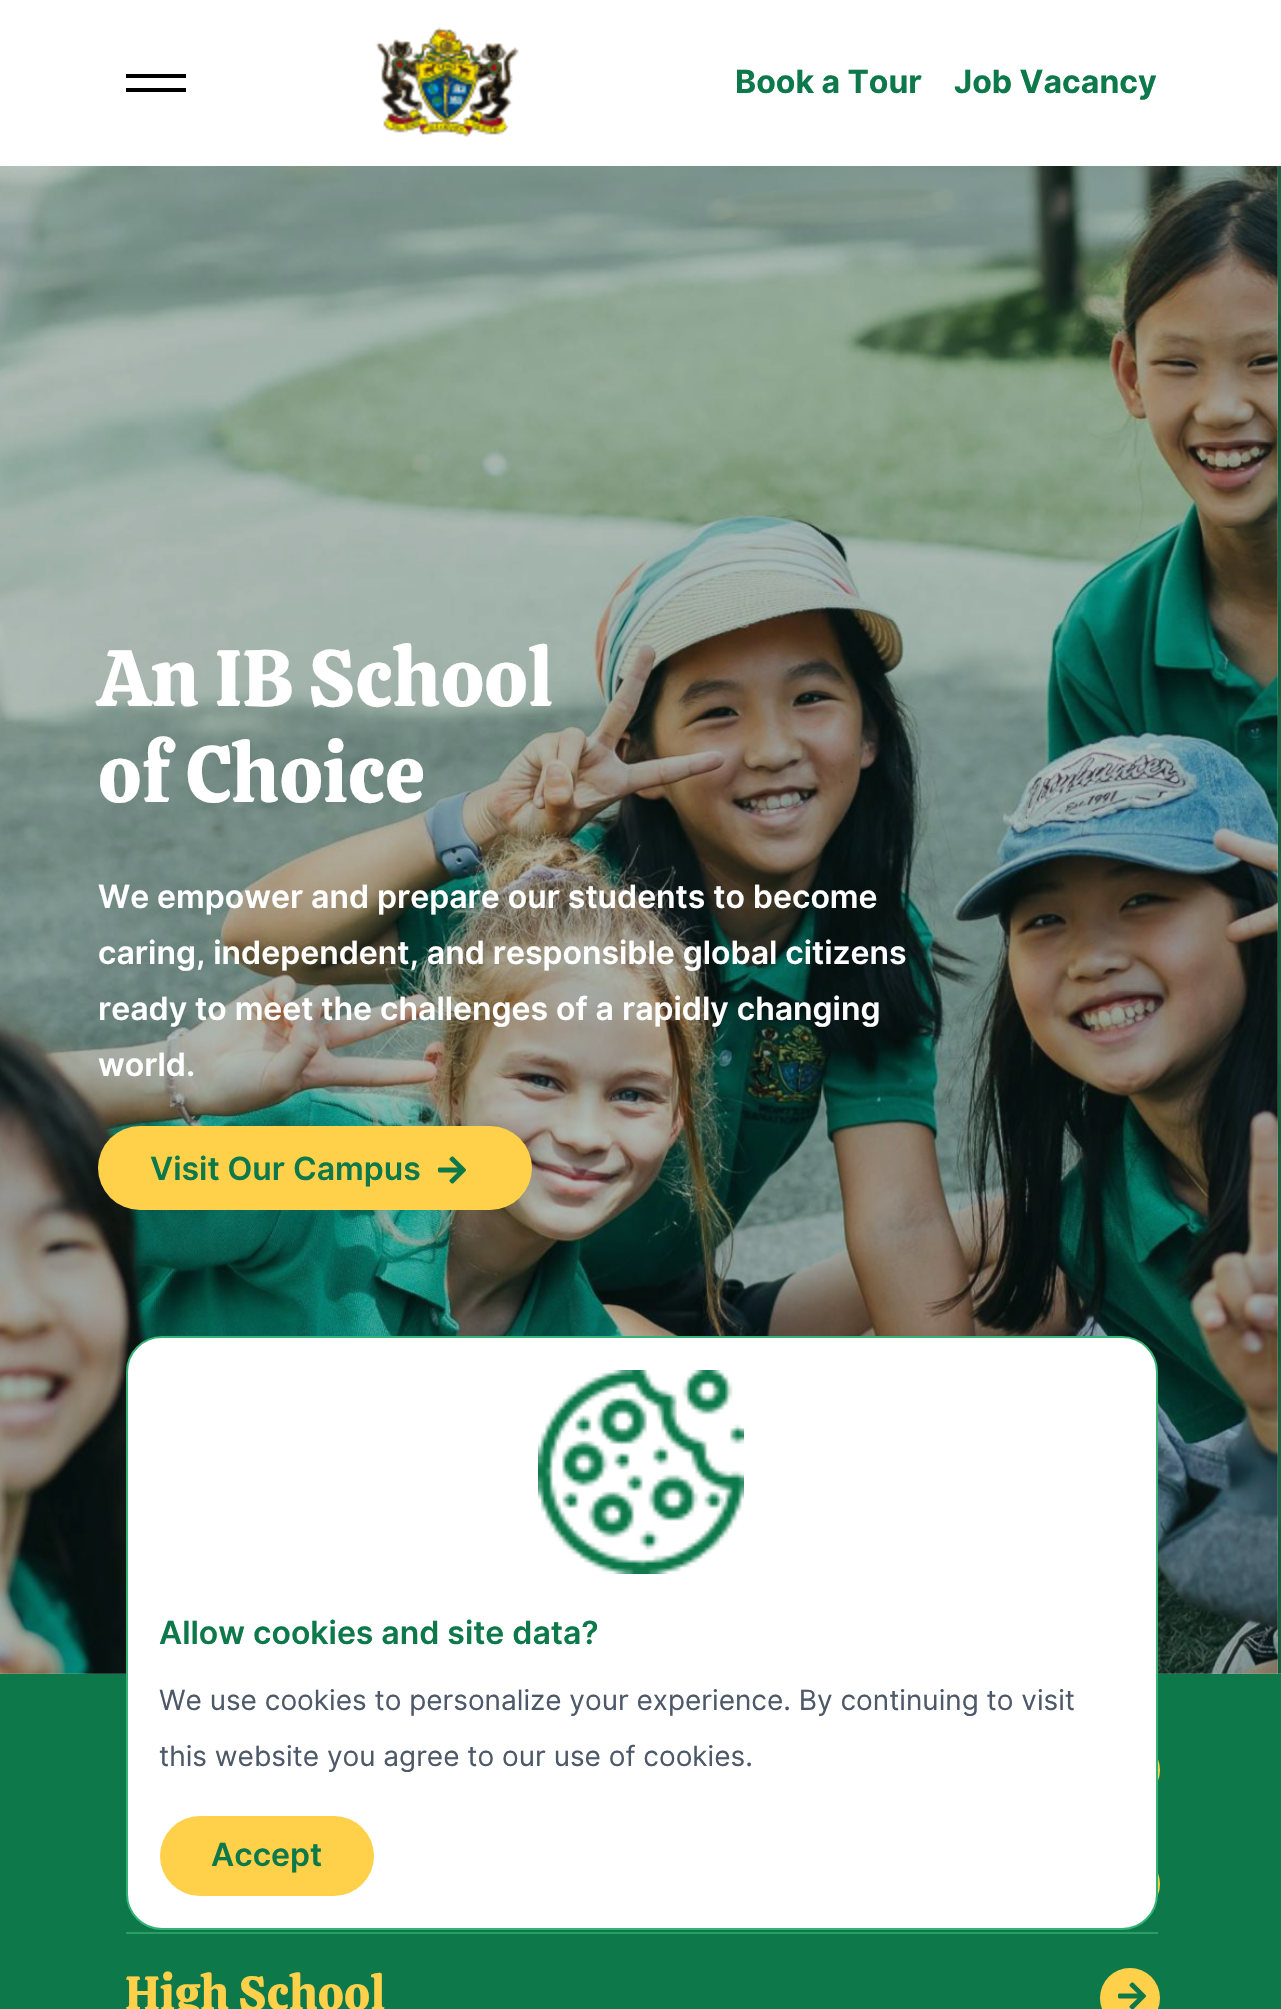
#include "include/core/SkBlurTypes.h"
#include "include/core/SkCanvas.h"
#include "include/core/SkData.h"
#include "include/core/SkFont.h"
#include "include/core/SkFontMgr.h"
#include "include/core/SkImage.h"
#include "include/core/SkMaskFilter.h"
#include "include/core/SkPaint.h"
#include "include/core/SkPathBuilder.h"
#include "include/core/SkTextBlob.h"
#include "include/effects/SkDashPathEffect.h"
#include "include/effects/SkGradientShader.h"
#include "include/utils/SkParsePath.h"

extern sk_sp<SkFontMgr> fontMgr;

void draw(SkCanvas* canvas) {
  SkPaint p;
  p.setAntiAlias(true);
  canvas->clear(SK_ColorWHITE);
  p.setColor(SkColorSetRGB(180, 191, 186));
  canvas->drawRect(SkRect::MakeLTRB(0, 166, 1278, 1674), p);
  p.setColor(SK_ColorBLACK);
  canvas->drawRect(SkRect::MakeLTRB(126, 74, 186, 78), p);
  canvas->drawRect(SkRect::MakeLTRB(126, 88, 186, 92), p);
  canvas->drawImageRect(SkImages::DeferredFromEncodedData(SkData::MakeFromFileName("images/1.png")), SkRect::MakeLTRB(375, 27, 519, 137), SkSamplingOptions());
  canvas->drawImageRect(SkImages::DeferredFromEncodedData(SkData::MakeFromFileName("images/2.png")), SkRect::MakeLTRB(0, 166, 1279, 1674), SkSamplingOptions());
  p.setColor(SkColorSetRGB(255, 208, 74));
  canvas->drawRoundRect(SkRect::MakeLTRB(98, 1126, 532, 1210), 42, 42, p);
  canvas->drawImageRect(SkImages::DeferredFromEncodedData(SkData::MakeFromFileName("images/3.png")), SkRect::MakeLTRB(438, 1156, 466, 1184), SkSamplingOptions());
  canvas->drawImageRect(SkImages::DeferredFromEncodedData(SkData::MakeFromFileName("images/4.png")), SkRect::MakeLTRB(1278, 166, 1281, 1674), SkSamplingOptions());
  p.setColor(SkColorSetARGB(77, 5, 41, 25));
  canvas->drawRect(SkRect::MakeLTRB(1278, 166, 1281, 1674), p);
  p.setColor(SkColorSetRGB(13, 120, 74));
  canvas->drawRect(SkRect::MakeLTRB(0, 1674, 1281, 2009), p);
  p.setColor(SkColorSetRGB(255, 208, 74));
  canvas->drawCircle(1130, 1770, 30, p);
  canvas->drawCircle(1130, 1884, 30, p);
  p.setColor(SkColorSetRGB(43, 158, 102));
  canvas->drawRect(SkRect::MakeLTRB(126, 1932, 1158, 1934), p);
  p.setColor(SkColorSetRGB(255, 208, 74));
  canvas->drawCircle(1130, 1998, 30, p);
  canvas->drawImageRect(SkImages::DeferredFromEncodedData(SkData::MakeFromFileName("images/5.png")), SkRect::MakeLTRB(1118, 1982, 1146, 2009), SkSamplingOptions());
  p.setColor(SK_ColorWHITE);
  canvas->drawRoundRect(SkRect::MakeLTRB(127, 1337, 1157, 1929), 35, 35, p);
  p.setStyle(SkPaint::kStroke_Style);
  p.setStrokeWidth(2);
  p.setColor(SkColorSetRGB(51, 180, 117));
  canvas->drawRoundRect(SkRect::MakeLTRB(127, 1337, 1157, 1929), 35, 35, p);
  canvas->drawImageRect(SkImages::DeferredFromEncodedData(SkData::MakeFromFileName("images/6.png")), SkRect::MakeLTRB(538, 1370, 744, 1574), SkSamplingOptions());
  p.setStyle(SkPaint::kFill_Style);
  p.setColor(SkColorSetRGB(255, 208, 74));
  canvas->drawRoundRect(SkRect::MakeLTRB(160, 1816, 374, 1896), 40, 40, p);
  SkFont font1(fontMgr->matchFamilyStyle("Inter", SkFontStyle::Bold()), 32);
  font1.setSubpixel(true);
  p.setColor(SkColorSetRGB(13, 120, 74));
  canvas->drawString("Book a Tour", 735, 93, font1, p);
  canvas->drawString("Job Vacancy", 954, 93, font1, p);
  SkFont font2(fontMgr->matchFamilyStyle("Calistoga", SkFontStyle::Normal()), 80);
  font2.setSubpixel(true);
  p.setColor(SK_ColorWHITE);
  canvas->drawString("An IB School", 98, 706, font2, p);
  canvas->drawString("of Choice", 98, 802, font2, p);
  SkFont font3(fontMgr->matchFamilyStyle("Inter", SkFontStyle(600, SkFontStyle::kNormal_Width, SkFontStyle::kUpright_Slant)), 32);
  font3.setSubpixel(true);
  canvas->drawString("We empower and prepare our students to become", 98, 908, font3, p);
  canvas->drawString("caring, independent, and responsible global citizens", 98, 964, font3, p);
  canvas->drawString("ready to meet the challenges of a rapidly changing", 98, 1020, font3, p);
  canvas->drawString("world.", 98, 1076, font3, p);
  p.setColor(SkColorSetRGB(13, 120, 74));
  canvas->drawString("Visit Our Campus", 150, 1180, font3, p);
  SkFont font4(fontMgr->matchFamilyStyle("Calistoga", SkFontStyle::Normal()), 48);
  font4.setSubpixel(true);
  p.setColor(SkColorSetRGB(255, 208, 74));
  canvas->drawString("High School", 125, 2010, font4, p);
  p.setColor(SkColorSetRGB(13, 120, 74));
  canvas->drawString("Allow cookies and site data?", 159, 1644, font3, p);
  SkFont font5(fontMgr->matchFamilyStyle("Inter", SkFontStyle::Normal()), 28);
  font5.setSubpixel(true);
  p.setColor(SkColorSetRGB(77, 89, 105));
  canvas->drawString("We use cookies to personalize your experience. By continuing to visit", 159, 1710, font5, p);
  canvas->drawString("this website you agree to our use of cookies.", 159, 1766, font5, p);
  p.setColor(SkColorSetRGB(13, 120, 74));
  canvas->drawString("Accept", 211, 1866, font3, p);
}
